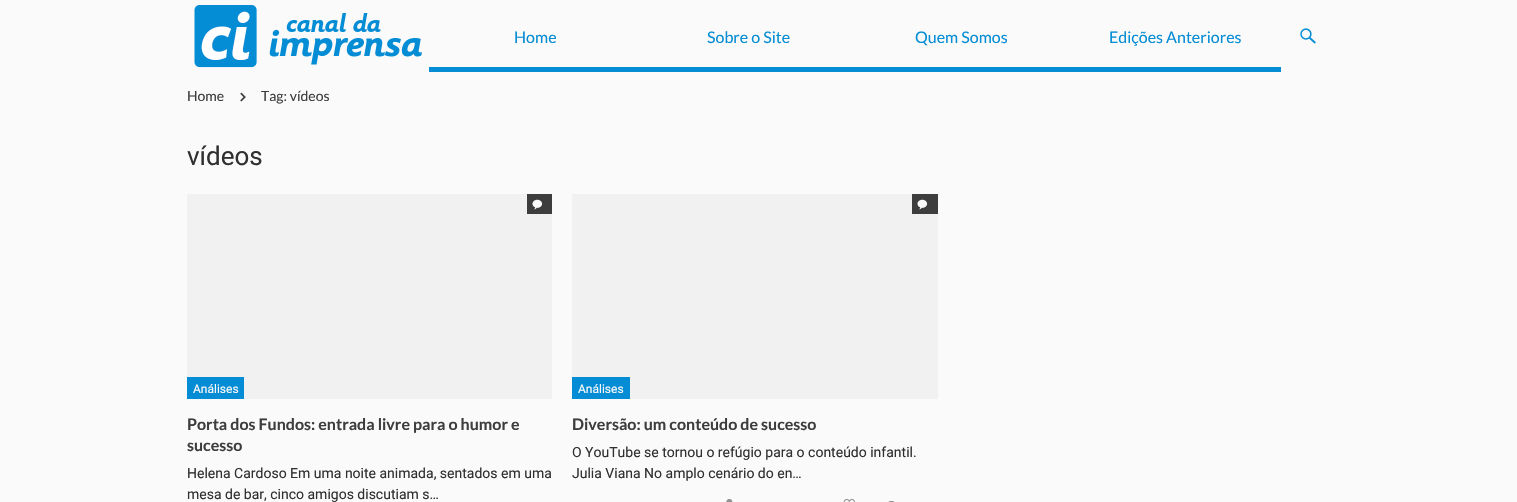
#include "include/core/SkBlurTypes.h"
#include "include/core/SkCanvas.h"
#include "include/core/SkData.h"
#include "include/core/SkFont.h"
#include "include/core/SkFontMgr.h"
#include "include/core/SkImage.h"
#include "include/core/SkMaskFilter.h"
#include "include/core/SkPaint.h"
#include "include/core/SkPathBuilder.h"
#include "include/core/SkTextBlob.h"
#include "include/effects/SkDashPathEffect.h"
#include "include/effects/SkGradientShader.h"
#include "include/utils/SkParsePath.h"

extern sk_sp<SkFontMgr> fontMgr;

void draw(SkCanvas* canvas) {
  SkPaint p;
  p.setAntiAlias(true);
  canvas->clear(SkColorSetRGB(250, 250, 250));
  canvas->drawImageRect(SkImages::DeferredFromEncodedData(SkData::MakeFromFileName("images/1.png")), SkRect::MakeLTRB(194, 5, 422, 68), SkSamplingOptions());
  p.setColor(SkColorSetRGB(4, 140, 212));
  canvas->drawRect(SkRect::MakeLTRB(429, 67, 1281, 72), p);
  canvas->drawImageRect(SkImages::DeferredFromEncodedData(SkData::MakeFromFileName("images/2.png")), SkRect::MakeLTRB(1300, 28, 1316, 44), SkSamplingOptions());
  canvas->drawImageRect(SkImages::DeferredFromEncodedData(SkData::MakeFromFileName("images/3.png")), SkRect::MakeLTRB(240, 92, 246, 102), SkSamplingOptions());
  p.setColor(SkColorSetRGB(241, 241, 241));
  canvas->drawRect(SkRect::MakeLTRB(187, 194, 552, 399), p);
  p.setColor(SkColorSetRGB(61, 61, 61));
  canvas->drawRect(SkRect::MakeLTRB(527, 194, 552, 214), p);
  canvas->drawImageRect(SkImages::DeferredFromEncodedData(SkData::MakeFromFileName("images/4.png")), SkRect::MakeLTRB(532, 199, 543, 210), SkSamplingOptions());
  p.setColor(SkColorSetRGB(4, 140, 212));
  canvas->drawRect(SkRect::MakeLTRB(187, 377, 244, 399), p);
  p.setColor(SkColorSetRGB(241, 241, 241));
  canvas->drawRect(SkRect::MakeLTRB(572, 194, 938, 399), p);
  p.setColor(SkColorSetRGB(61, 61, 61));
  canvas->drawRect(SkRect::MakeLTRB(912, 194, 938, 214), p);
  canvas->drawImageRect(SkImages::DeferredFromEncodedData(SkData::MakeFromFileName("images/4.png")), SkRect::MakeLTRB(917, 199, 928, 210), SkSamplingOptions());
  p.setColor(SkColorSetRGB(4, 140, 212));
  canvas->drawRect(SkRect::MakeLTRB(572, 377, 630, 399), p);
  canvas->drawImageRect(SkImages::DeferredFromEncodedData(SkData::MakeFromFileName("images/5.png")), SkRect::MakeLTRB(726, 498, 733, 502), SkSamplingOptions());
  canvas->drawImageRect(SkImages::DeferredFromEncodedData(SkData::MakeFromFileName("images/6.png")), SkRect::MakeLTRB(843, 498, 855, 502), SkSamplingOptions());
  canvas->drawImageRect(SkImages::DeferredFromEncodedData(SkData::MakeFromFileName("images/7.png")), SkRect::MakeLTRB(888, 500, 895, 502), SkSamplingOptions());
  SkFont font1(fontMgr->matchFamilyStyle("Lato", SkFontStyle::Normal()), 16);
  font1.setSubpixel(true);
  canvas->drawString("Home", 514, 43, font1, p);
  canvas->drawString("Sobre o Site", 707, 43, font1, p);
  canvas->drawString("Quem Somos", 915, 43, font1, p);
  canvas->drawString("Edições Anteriores", 1109, 43, font1, p);
  SkFont font2(fontMgr->matchFamilyStyle("Lato", SkFontStyle::Normal()), 14);
  font2.setSubpixel(true);
  p.setColor(SkColorSetRGB(61, 61, 61));
  canvas->drawString("Home", 187, 101, font2, p);
  canvas->drawString("Tag: vídeos", 261, 101, font2, p);
  SkFont font3(fontMgr->matchFamilyStyle("Roboto", SkFontStyle::Normal()), 26);
  font3.setSubpixel(true);
  p.setColor(SkColorSetRGB(48, 48, 48));
  canvas->drawString("vídeos", 187, 165, font3, p);
  SkFont font4(fontMgr->matchFamilyStyle("Roboto", SkFontStyle::Normal()), 12);
  font4.setSubpixel(true);
  p.setColor(SkColorSetRGB(250, 250, 250));
  canvas->drawString("Análises", 193, 393, font4, p);
  SkFont font5(fontMgr->matchFamilyStyle("Lato", SkFontStyle::Bold()), 16);
  font5.setSubpixel(true);
  p.setColor(SkColorSetRGB(61, 61, 61));
  canvas->drawString("Porta dos Fundos: entrada livre para o humor e", 187, 430, font5, p);
  canvas->drawString("sucesso", 187, 451, font5, p);
  SkFont font6(fontMgr->matchFamilyStyle("Roboto", SkFontStyle::Normal()), 14);
  font6.setSubpixel(true);
  p.setColor(SkColorSetRGB(48, 48, 48));
  canvas->drawString("Helena Cardoso Em uma noite animada, sentados em uma", 187, 478, font6, p);
  canvas->drawString("mesa de bar, cinco amigos discutiam s…", 187, 499, font6, p);
  p.setColor(SkColorSetRGB(250, 250, 250));
  canvas->drawString("Análises", 578, 393, font4, p);
  p.setColor(SkColorSetRGB(61, 61, 61));
  canvas->drawString("Diversão: um conteúdo de sucesso", 572, 430, font5, p);
  p.setColor(SkColorSetRGB(48, 48, 48));
  canvas->drawString("O YouTube se tornou o refúgio para o conteúdo infantil.", 572, 457, font6, p);
  canvas->drawString("Julia Viana No amplo cenário do en…", 572, 478, font6, p);
}
